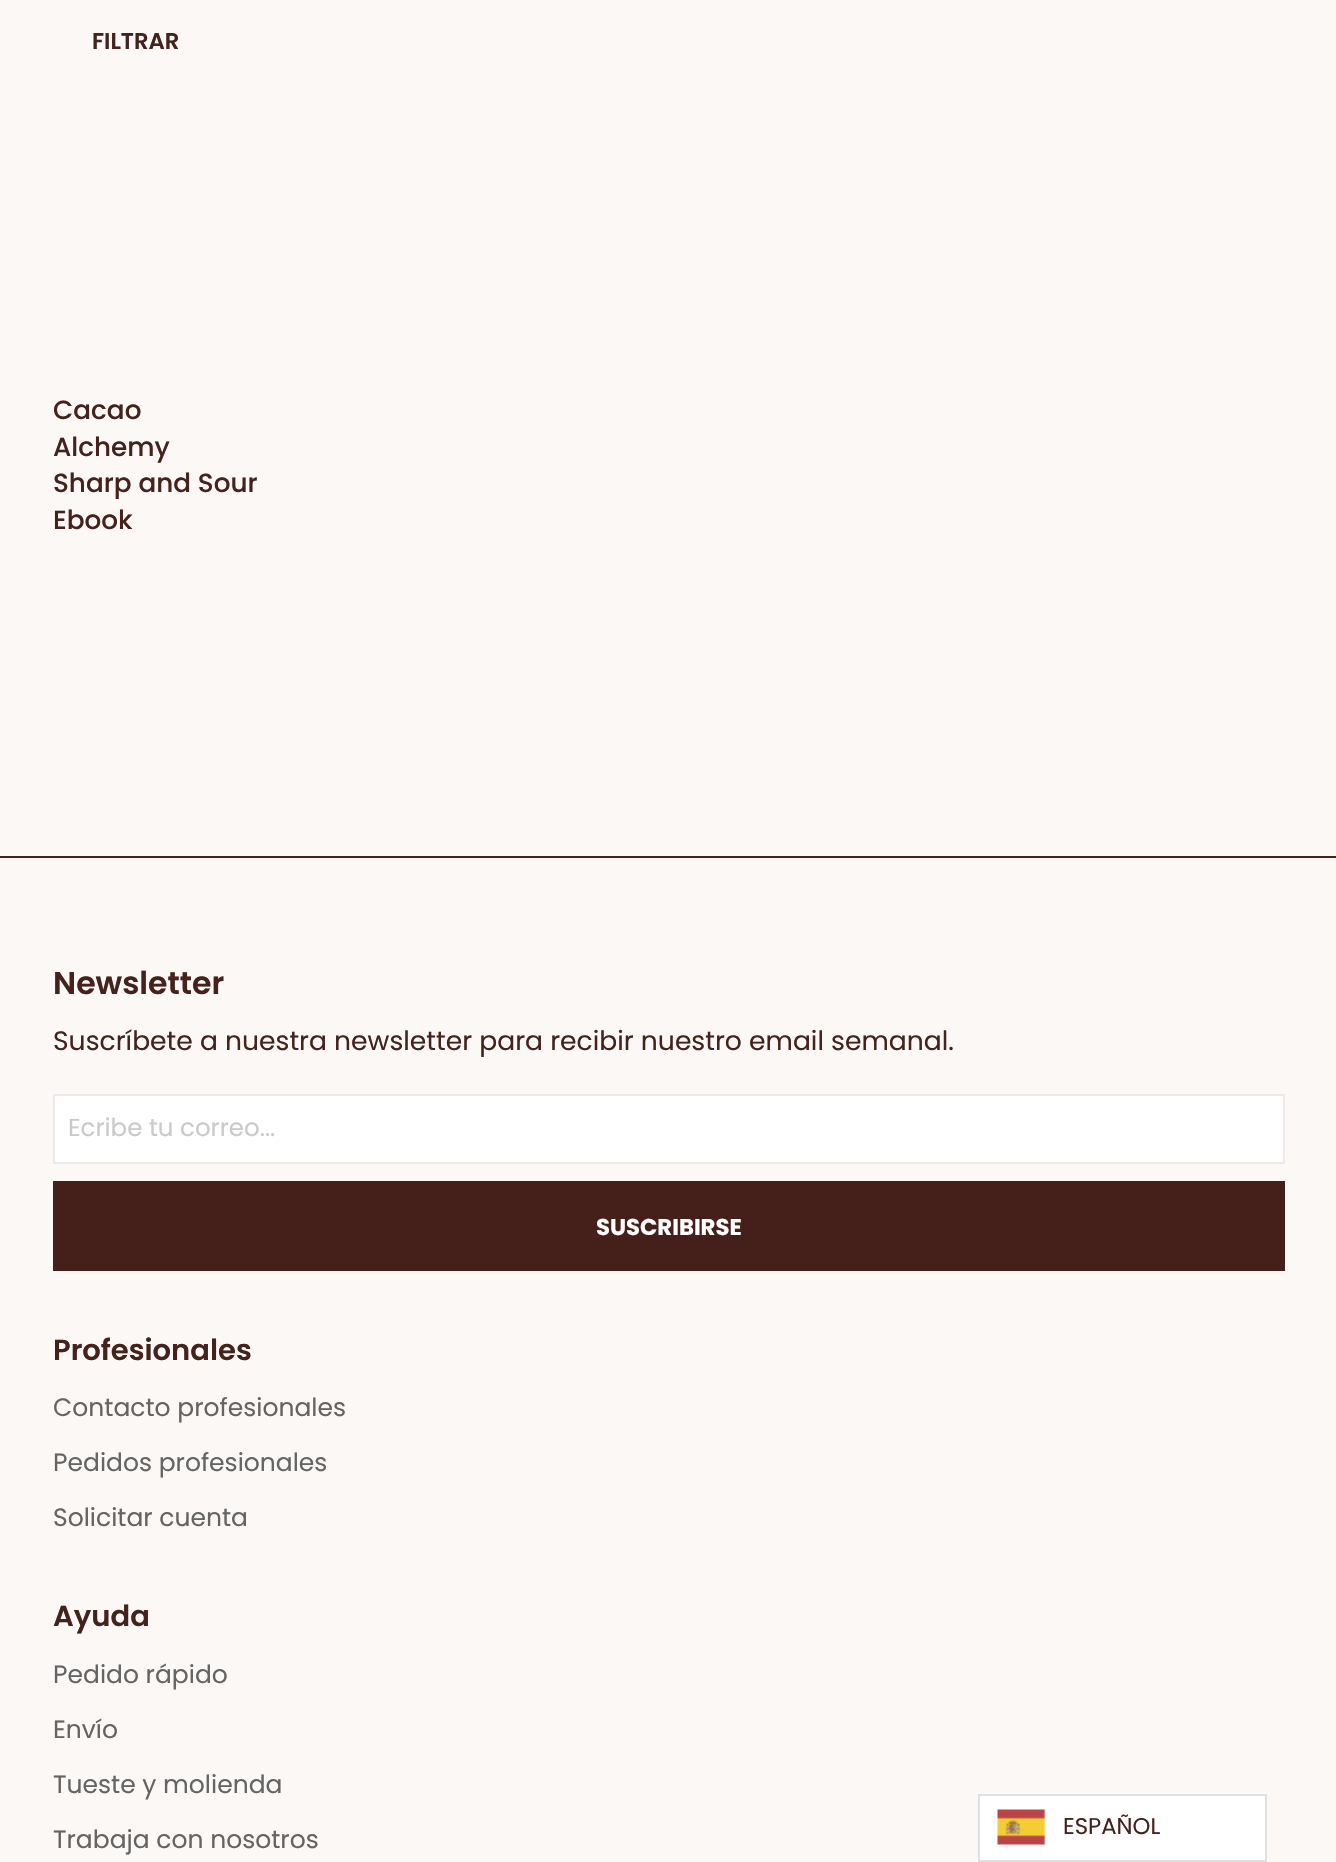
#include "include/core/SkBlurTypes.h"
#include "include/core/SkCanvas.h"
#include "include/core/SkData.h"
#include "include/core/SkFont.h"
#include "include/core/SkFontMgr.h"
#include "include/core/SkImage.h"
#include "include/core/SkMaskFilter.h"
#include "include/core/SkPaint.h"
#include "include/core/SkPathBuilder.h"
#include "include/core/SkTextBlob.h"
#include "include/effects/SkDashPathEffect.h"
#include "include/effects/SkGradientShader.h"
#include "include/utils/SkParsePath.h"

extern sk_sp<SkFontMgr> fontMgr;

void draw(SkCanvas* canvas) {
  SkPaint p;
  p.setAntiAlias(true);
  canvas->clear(SkColorSetRGB(251, 248, 246));
  p.setColor(SkColorSetRGB(69, 34, 27));
  canvas->drawRect(SkRect::MakeLTRB(0, 856, 1336, 858), p);
  p.setColor(SK_ColorWHITE);
  canvas->drawRect(SkRect::MakeLTRB(54, 1095, 1284, 1163), p);
  p.setStyle(SkPaint::kStroke_Style);
  p.setStrokeWidth(2);
  p.setColor(SkColorSetRGB(236, 233, 232));
  canvas->drawRect(SkRect::MakeLTRB(54, 1095, 1284, 1163), p);
  p.setStyle(SkPaint::kFill_Style);
  p.setColor(SkColorSetRGB(69, 32, 27));
  canvas->drawRect(SkRect::MakeLTRB(53, 1181, 1285, 1271), p);
  p.setColor(SK_ColorWHITE);
  canvas->drawRect(SkRect::MakeLTRB(979, 1795, 1266, 1861), p);
  p.setStyle(SkPaint::kStroke_Style);
  p.setColor(SkColorSetRGB(224, 224, 224));
  canvas->drawRect(SkRect::MakeLTRB(979, 1795, 1266, 1861), p);
  canvas->drawImageRect(SkImages::DeferredFromEncodedData(SkData::MakeFromFileName("images/1.png")), SkRect::MakeLTRB(997, 1809, 1046, 1845), SkSamplingOptions());
  SkFont font1(fontMgr->matchFamilyStyle("Poppins", SkFontStyle(600, SkFontStyle::kNormal_Width, SkFontStyle::kUpright_Slant)), 22.75f);
  font1.setSubpixel(true);
  p.setStyle(SkPaint::kFill_Style);
  p.setColor(SkColorSetRGB(69, 34, 27));
  canvas->drawString("FILTRAR", 92, 49, font1, p);
  SkFont font2(fontMgr->matchFamilyStyle("Poppins", SkFontStyle(500, SkFontStyle::kNormal_Width, SkFontStyle::kUpright_Slant)), 26.25f);
  font2.setSubpixel(true);
  canvas->drawString("Cacao", 53, 419, font2, p);
  canvas->drawString("Alchemy", 53, 456, font2, p);
  canvas->drawString("Sharp and Sour", 53, 492, font2, p);
  canvas->drawString("Ebook", 53, 529, font2, p);
  SkFont font3(fontMgr->matchFamilyStyle("Poppins", SkFontStyle(600, SkFontStyle::kNormal_Width, SkFontStyle::kUpright_Slant)), 31.5f);
  font3.setSubpixel(true);
  canvas->drawString("Newsletter", 53, 994, font3, p);
  SkFont font4(fontMgr->matchFamilyStyle("Poppins", SkFontStyle::Normal()), 26.6f);
  font4.setSubpixel(true);
  canvas->drawString("Suscríbete a nuestra newsletter para recibir nuestro email semanal.", 53, 1050, font4, p);
  SkFont font5(fontMgr->matchFamilyStyle("Poppins", SkFontStyle::Normal()), 24.5f);
  font5.setSubpixel(true);
  p.setColor(SkColorSetRGB(202, 202, 202));
  canvas->drawString("Ecribe tu correo...", 68, 1136, font5, p);
  SkFont font6(fontMgr->matchFamilyStyle("Poppins", SkFontStyle::Bold()), 22.75f);
  font6.setSubpixel(true);
  p.setColor(SK_ColorWHITE);
  canvas->drawString("SUSCRIBIRSE", 596, 1235, font6, p);
  SkFont font7(fontMgr->matchFamilyStyle("Poppins", SkFontStyle(600, SkFontStyle::kNormal_Width, SkFontStyle::kUpright_Slant)), 29);
  font7.setSubpixel(true);
  p.setColor(SkColorSetRGB(69, 34, 27));
  canvas->drawString("Profesionales", 53, 1360, font7, p);
  SkFont font8(fontMgr->matchFamilyStyle("Poppins", SkFontStyle::Normal()), 25);
  font8.setSubpixel(true);
  p.setColor(SkColorSetRGB(100, 100, 100));
  canvas->drawString("Contacto profesionales", 53, 1416, font8, p);
  canvas->drawString("Pedidos profesionales", 53, 1471, font8, p);
  canvas->drawString("Solicitar cuenta", 53, 1526, font8, p);
  p.setColor(SkColorSetRGB(69, 34, 27));
  canvas->drawString("Ayuda", 53, 1626, font7, p);
  p.setColor(SkColorSetRGB(100, 100, 100));
  canvas->drawString("Pedido rápido", 53, 1683, font8, p);
  canvas->drawString("Envío", 53, 1738, font8, p);
  canvas->drawString("Tueste y molienda", 53, 1793, font8, p);
  canvas->drawString("Trabaja con nosotros", 53, 1848, font8, p);
  SkFont font9(fontMgr->matchFamilyStyle("Poppins", SkFontStyle::Normal()), 22.75f);
  font9.setSubpixel(true);
  p.setColor(SkColorSetRGB(69, 34, 27));
  canvas->drawString("ESPAÑOL", 1063, 1834, font9, p);
}
